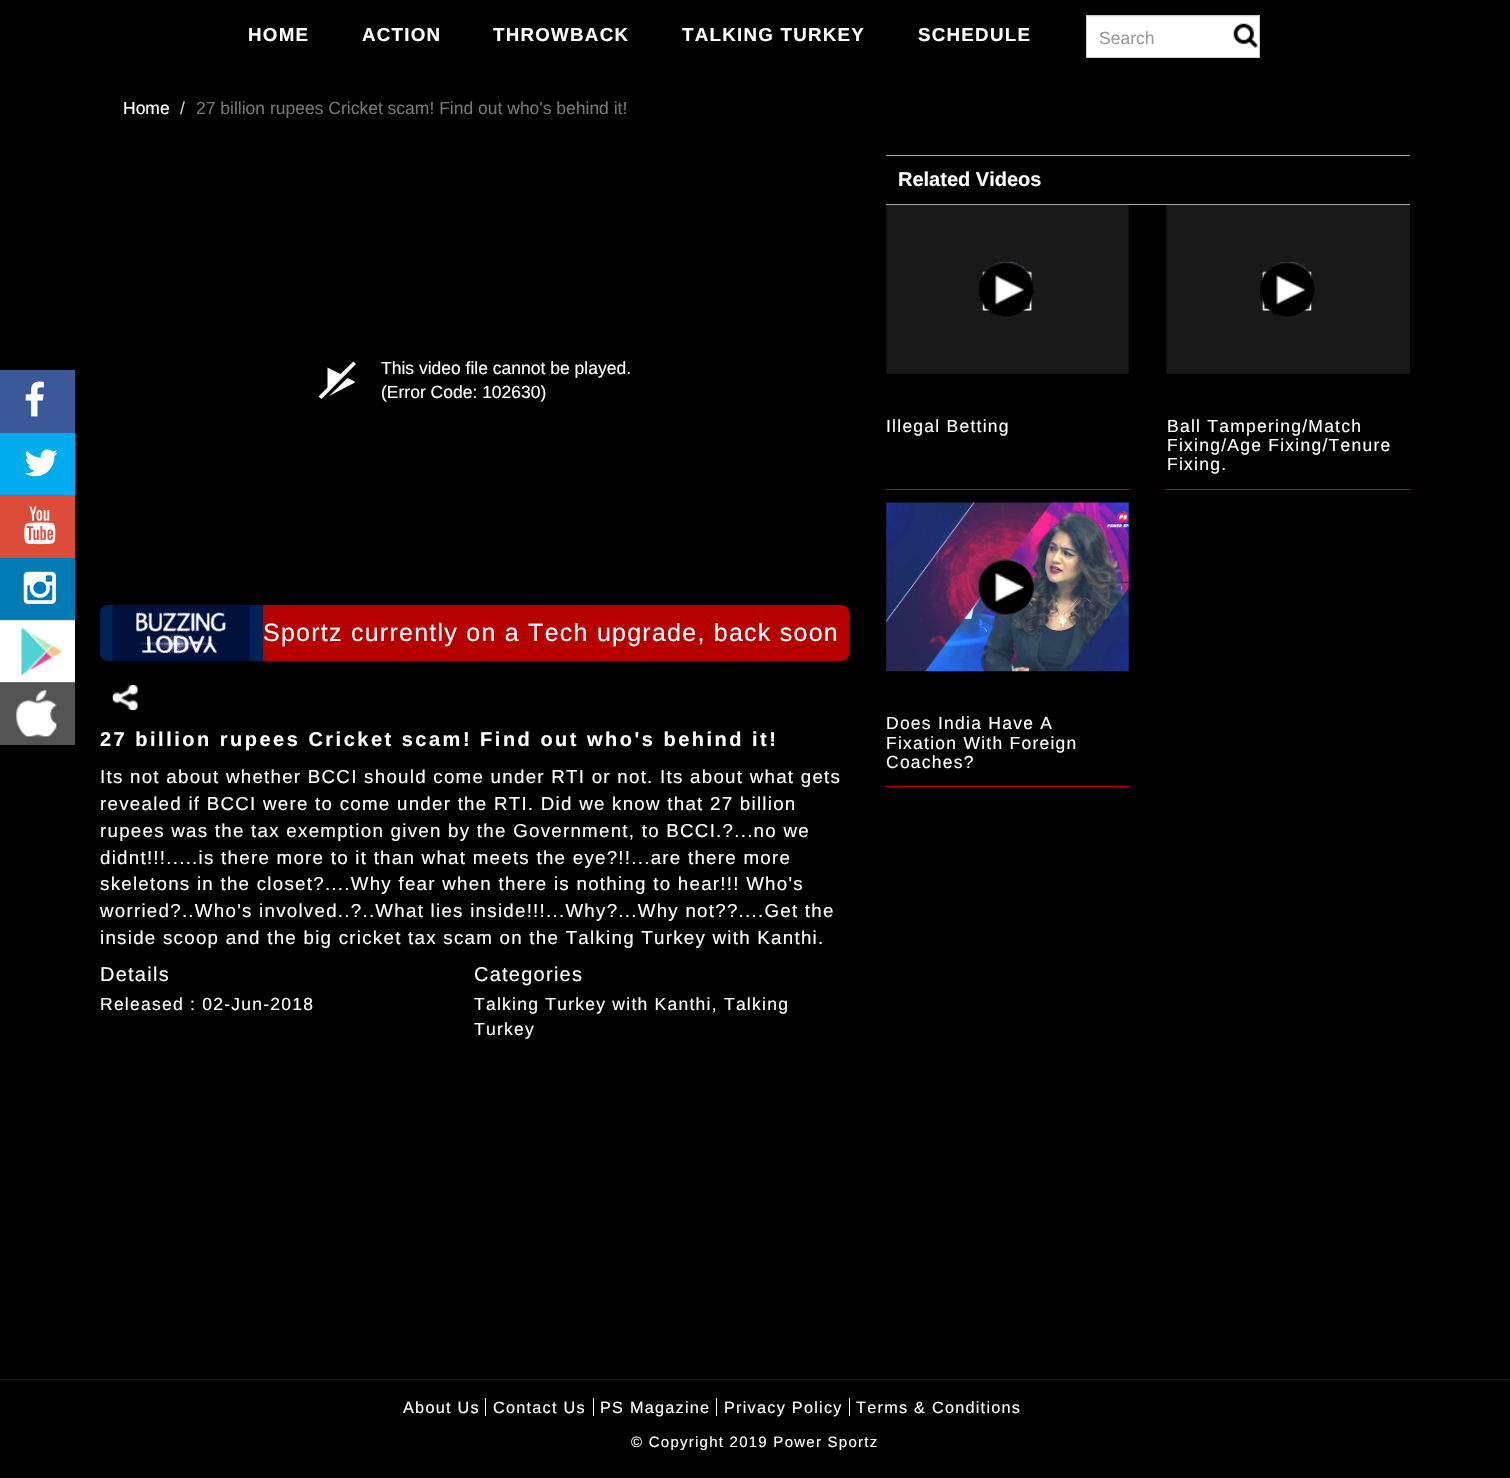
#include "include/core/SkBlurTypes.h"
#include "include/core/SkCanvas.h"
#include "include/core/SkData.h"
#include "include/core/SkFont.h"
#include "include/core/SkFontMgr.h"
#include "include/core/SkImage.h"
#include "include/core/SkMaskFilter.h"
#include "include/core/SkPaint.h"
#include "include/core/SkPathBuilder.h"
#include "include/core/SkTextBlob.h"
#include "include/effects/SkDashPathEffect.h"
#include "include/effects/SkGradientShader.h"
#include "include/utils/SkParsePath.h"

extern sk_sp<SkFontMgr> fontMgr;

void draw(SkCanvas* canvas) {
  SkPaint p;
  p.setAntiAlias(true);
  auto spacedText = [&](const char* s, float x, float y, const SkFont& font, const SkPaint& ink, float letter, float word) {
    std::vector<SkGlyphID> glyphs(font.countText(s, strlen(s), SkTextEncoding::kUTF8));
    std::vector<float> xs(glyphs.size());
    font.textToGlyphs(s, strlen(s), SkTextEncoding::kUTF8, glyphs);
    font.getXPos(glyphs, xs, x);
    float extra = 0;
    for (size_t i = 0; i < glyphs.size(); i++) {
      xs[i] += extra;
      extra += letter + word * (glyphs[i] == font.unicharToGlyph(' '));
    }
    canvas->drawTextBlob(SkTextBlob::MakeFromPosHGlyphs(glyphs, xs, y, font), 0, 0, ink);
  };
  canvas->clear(SK_ColorBLACK);
  p.setColor(SK_ColorWHITE);
  canvas->drawRect(SkRect::MakeLTRB(1087, 16, 1259, 57), p);
  canvas->drawImageRect(SkImages::DeferredFromEncodedData(SkData::MakeFromFileName("images/1.png")), SkRect::MakeLTRB(1233, 23, 1258, 48), SkSamplingOptions());
  p.setColor(SkColorSetRGB(236, 236, 236));
  canvas->drawRect(SkRect::MakeLTRB(1088, 16, 1259, 17), p);
  p.setStyle(SkPaint::kStroke_Style);
  p.setStrokeWidth(1);
  p.setColor(SkColorSetRGB(204, 204, 204));
  canvas->drawRect(SkRect::MakeLTRB(1086.5f, 15.5f, 1259.5f, 57.5f), p);
  p.setStyle(SkPaint::kFill_Style);
  p.setColor(SK_ColorWHITE);
  canvas->drawPath(SkPathBuilder().moveTo(355, 382.5f).lineTo(329, 396).lineTo(347.5f, 378).cubicTo(354.5f, 381.5f, 356, 382, 355, 382.5f).close().moveTo(353.5f, 361.5f).lineTo(340.5f, 374).lineTo(327.5f, 367.5f).lineTo(327.5f, 387.5f).lineTo(318.5f, 396.5f).lineTo(321.5f, 399).lineTo(356, 364).close().detach(), p);
  p.setColor(SkColorSetRGB(0, 35, 84));
  canvas->drawPath(SkPathBuilder().moveTo(108, 605).lineTo(263, 605).lineTo(263, 661).lineTo(108, 661).cubicTo(103.5f, 661, 100, 657.5f, 100, 653).lineTo(100, 613).cubicTo(100, 608.5f, 103.5f, 605, 108, 605).close().detach(), p);
  canvas->drawImageRect(SkImages::DeferredFromEncodedData(SkData::MakeFromFileName("images/2.png")), SkRect::MakeLTRB(112, 605, 250, 662), SkSamplingOptions());
  p.setColor(SkColorSetRGB(182, 0, 0));
  canvas->drawPath(SkPathBuilder().moveTo(263, 605).lineTo(841, 605).cubicTo(845.5f, 605, 849, 608.5f, 849, 613).lineTo(849, 653).cubicTo(849, 657.5f, 845.5f, 661, 841, 661).lineTo(263, 661).close().detach(), p);
  canvas->drawImageRect(SkImages::DeferredFromEncodedData(SkData::MakeFromFileName("images/3.png")), SkRect::MakeLTRB(112, 685, 138, 710), SkSamplingOptions());
  p.setColor(SkColorSetRGB(171, 165, 165));
  canvas->drawRect(SkRect::MakeLTRB(886, 155, 1410, 156), p);
  canvas->drawRect(SkRect::MakeLTRB(886, 204, 1410, 205), p);
  canvas->drawImageRect(SkImages::DeferredFromEncodedData(SkData::MakeFromFileName("images/4.png")), SkRect::MakeLTRB(886, 205, 1129, 374), SkSamplingOptions());
  canvas->drawImageRect(SkImages::DeferredFromEncodedData(SkData::MakeFromFileName("images/5.png")), SkRect::MakeLTRB(978, 261, 1034, 317), SkSamplingOptions());
  p.setColor(SkColorSetRGB(204, 0, 0));
  canvas->drawRect(SkRect::MakeLTRB(886, 489, 1129, 490), p);
  canvas->drawImageRect(SkImages::DeferredFromEncodedData(SkData::MakeFromFileName("images/6.png")), SkRect::MakeLTRB(1166, 205, 1410, 374), SkSamplingOptions());
  canvas->drawImageRect(SkImages::DeferredFromEncodedData(SkData::MakeFromFileName("images/7.png")), SkRect::MakeLTRB(1260, 261, 1315, 317), SkSamplingOptions());
  canvas->drawRect(SkRect::MakeLTRB(1166, 489, 1410, 490), p);
  canvas->drawImageRect(SkImages::DeferredFromEncodedData(SkData::MakeFromFileName("images/8.png")), SkRect::MakeLTRB(886, 502, 1129, 672), SkSamplingOptions());
  canvas->drawImageRect(SkImages::DeferredFromEncodedData(SkData::MakeFromFileName("images/9.png")), SkRect::MakeLTRB(978, 559, 1034, 615), SkSamplingOptions());
  canvas->drawRect(SkRect::MakeLTRB(886, 786, 1129, 787), p);
  p.setColor(SkColorSetRGB(29, 29, 29));
  canvas->drawRect(SkRect::MakeLTRB(0, 1379, 1510, 1380), p);
  p.setColor(SkColorSetRGB(59, 89, 152));
  canvas->drawRect(SkRect::MakeLTRB(0, 370, 75, 433), p);
  canvas->drawImageRect(SkImages::DeferredFromEncodedData(SkData::MakeFromFileName("images/10.png")), SkRect::MakeLTRB(25, 381, 44, 417), SkSamplingOptions());
  p.setColor(SkColorSetRGB(0, 172, 237));
  canvas->drawRect(SkRect::MakeLTRB(0, 433, 75, 495), p);
  canvas->drawImageRect(SkImages::DeferredFromEncodedData(SkData::MakeFromFileName("images/11.png")), SkRect::MakeLTRB(24, 449, 58, 477), SkSamplingOptions());
  p.setColor(SkColorSetRGB(221, 75, 57));
  canvas->drawRect(SkRect::MakeLTRB(0, 495, 75, 558), p);
  canvas->drawImageRect(SkImages::DeferredFromEncodedData(SkData::MakeFromFileName("images/12.png")), SkRect::MakeLTRB(24, 506, 56, 545), SkSamplingOptions());
  p.setColor(SkColorSetRGB(0, 123, 182));
  canvas->drawRect(SkRect::MakeLTRB(0, 558, 75, 620), p);
  canvas->drawImageRect(SkImages::DeferredFromEncodedData(SkData::MakeFromFileName("images/13.png")), SkRect::MakeLTRB(23, 571, 56, 604), SkSamplingOptions());
  canvas->drawImageRect(SkImages::DeferredFromEncodedData(SkData::MakeFromFileName("images/14.png")), SkRect::MakeLTRB(0, 619, 75, 683), SkSamplingOptions());
  canvas->drawImageRect(SkImages::DeferredFromEncodedData(SkData::MakeFromFileName("images/15.png")), SkRect::MakeLTRB(0, 682, 75, 745), SkSamplingOptions());
  p.setColor(SK_ColorWHITE);
  canvas->drawRect(SkRect::MakeLTRB(485, 1398, 486, 1416), p);
  canvas->drawRect(SkRect::MakeLTRB(593, 1398, 594, 1416), p);
  canvas->drawRect(SkRect::MakeLTRB(716, 1398, 717, 1416), p);
  canvas->drawRect(SkRect::MakeLTRB(849, 1398, 850, 1416), p);
  SkFont font1(fontMgr->matchFamilyStyle("Liberation Sans", SkFontStyle::Bold()), 18.75f);
  font1.setSubpixel(true);
  spacedText("HOME", 248, 41, font1, p, 1.25f, 0);
  spacedText("ACTION", 362, 41, font1, p, 1.25f, 0);
  spacedText("THROWBACK", 493, 41, font1, p, 1.25f, 0);
  spacedText("TALKING TURKEY", 682, 41, font1, p, 1.25f, 0);
  spacedText("SCHEDULE", 918, 41, font1, p, 1.25f, 0);
  SkFont font2(fontMgr->matchFamilyStyle("Liberation Sans", SkFontStyle::Normal()), 17.5f);
  font2.setSubpixel(true);
  p.setColor(SkColorSetRGB(153, 153, 153));
  canvas->drawString("Search", 1099, 44, font2, p);
  p.setColor(SK_ColorWHITE);
  canvas->drawString("Home", 123, 114, font2, p);
  p.setColor(SkColorSetRGB(204, 204, 204));
  canvas->drawString("/", 180, 114, font2, p);
  p.setColor(SkColorSetRGB(119, 119, 119));
  canvas->drawString("27 billion rupees Cricket scam! Find out who's behind it!", 196, 114, font2, p);
  p.setColor(SK_ColorWHITE);
  canvas->drawString("This video file cannot be played.", 381, 374, font2, p);
  canvas->drawString("(Error Code: 102630)", 381, 398, font2, p);
  SkFont font3(fontMgr->matchFamilyStyle("Liberation Sans", SkFontStyle::Normal()), 25);
  font3.setSubpixel(true);
  spacedText("Sportz currently on a Tech upgrade, back soon", 263, 641, font3, p, 1.25f, 0);
  SkFont font4(fontMgr->matchFamilyStyle("Liberation Sans", SkFontStyle::Bold()), 20);
  font4.setSubpixel(true);
  spacedText("27 billion rupees Cricket scam! Find out who's behind it!", 100, 746, font4, p, 2.5f, 0);
  SkFont font5(fontMgr->matchFamilyStyle("Liberation Sans", SkFontStyle::Normal()), 18.75f);
  font5.setSubpixel(true);
  spacedText("Its not about whether BCCI should come under RTI or not. Its about what gets", 100, 783, font5, p, 1.25f, 0);
  spacedText("revealed if BCCI were to come under the RTI. Did we know that 27 billion", 100, 810, font5, p, 1.25f, 0);
  spacedText("rupees was the tax exemption given by the Government, to BCCI.?...no we", 100, 837, font5, p, 1.25f, 0);
  spacedText("didnt!!!.....is there more to it than what meets the eye?!!...are there more", 100, 864, font5, p, 1.25f, 0);
  spacedText("skeletons in the closet?....Why fear when there is nothing to hear!!! Who's", 100, 890, font5, p, 1.25f, 0);
  spacedText("worried?..Who's involved..?..What lies inside!!!...Why?...Why not?\077....Get the", 100, 917, font5, p, 1.25f, 0);
  spacedText("inside scoop and the big cricket tax scam on the Talking Turkey with Kanthi.", 100, 944, font5, p, 1.25f, 0);
  SkFont font6(fontMgr->matchFamilyStyle("Liberation Sans", SkFontStyle::Normal()), 20);
  font6.setSubpixel(true);
  spacedText("Details", 100, 981, font6, p, 1.25f, 0);
  spacedText("Released : 02-Jun-2018", 100, 1010, font2, p, 1.25f, 0);
  spacedText("Categories", 474, 981, font6, p, 1.25f, 0);
  spacedText("Talking Turkey with Kanthi, Talking", 474, 1010, font2, p, 1.25f, 0);
  spacedText("Turkey", 474, 1035, font2, p, 1.25f, 0);
  canvas->drawString("Related Videos", 898, 186, font4, p);
  spacedText("Illegal Betting", 886, 432, font2, p, 1.25f, 0);
  spacedText("Ball Tampering/Match", 1167, 432, font2, p, 1.25f, 0);
  spacedText("Fixing/Age Fixing/Tenure", 1167, 451, font2, p, 1.25f, 0);
  spacedText("Fixing.", 1167, 470, font2, p, 1.25f, 0);
  spacedText("Does India Have A", 886, 729, font2, p, 1.25f, 0);
  spacedText("Fixation With Foreign", 886, 749, font2, p, 1.25f, 0);
  spacedText("Coaches?", 886, 768, font2, p, 1.25f, 0);
  SkFont font7(fontMgr->matchFamilyStyle("Liberation Sans", SkFontStyle::Normal()), 16.25f);
  font7.setSubpixel(true);
  spacedText("About Us", 403, 1413, font7, p, 1.25f, 0);
  spacedText("Contact Us", 493, 1413, font7, p, 1.25f, 0);
  spacedText("PS Magazine", 600, 1413, font7, p, 1.25f, 0);
  spacedText("Privacy Policy", 724, 1413, font7, p, 1.25f, 0);
  spacedText("Terms & Conditions", 856, 1413, font7, p, 1.25f, 0);
  SkFont font8(fontMgr->matchFamilyStyle("Liberation Sans", SkFontStyle::Normal()), 15);
  font8.setSubpixel(true);
  spacedText("© Copyright 2019 Power Sportz", 631, 1447, font8, p, 1.25f, 0);
}
